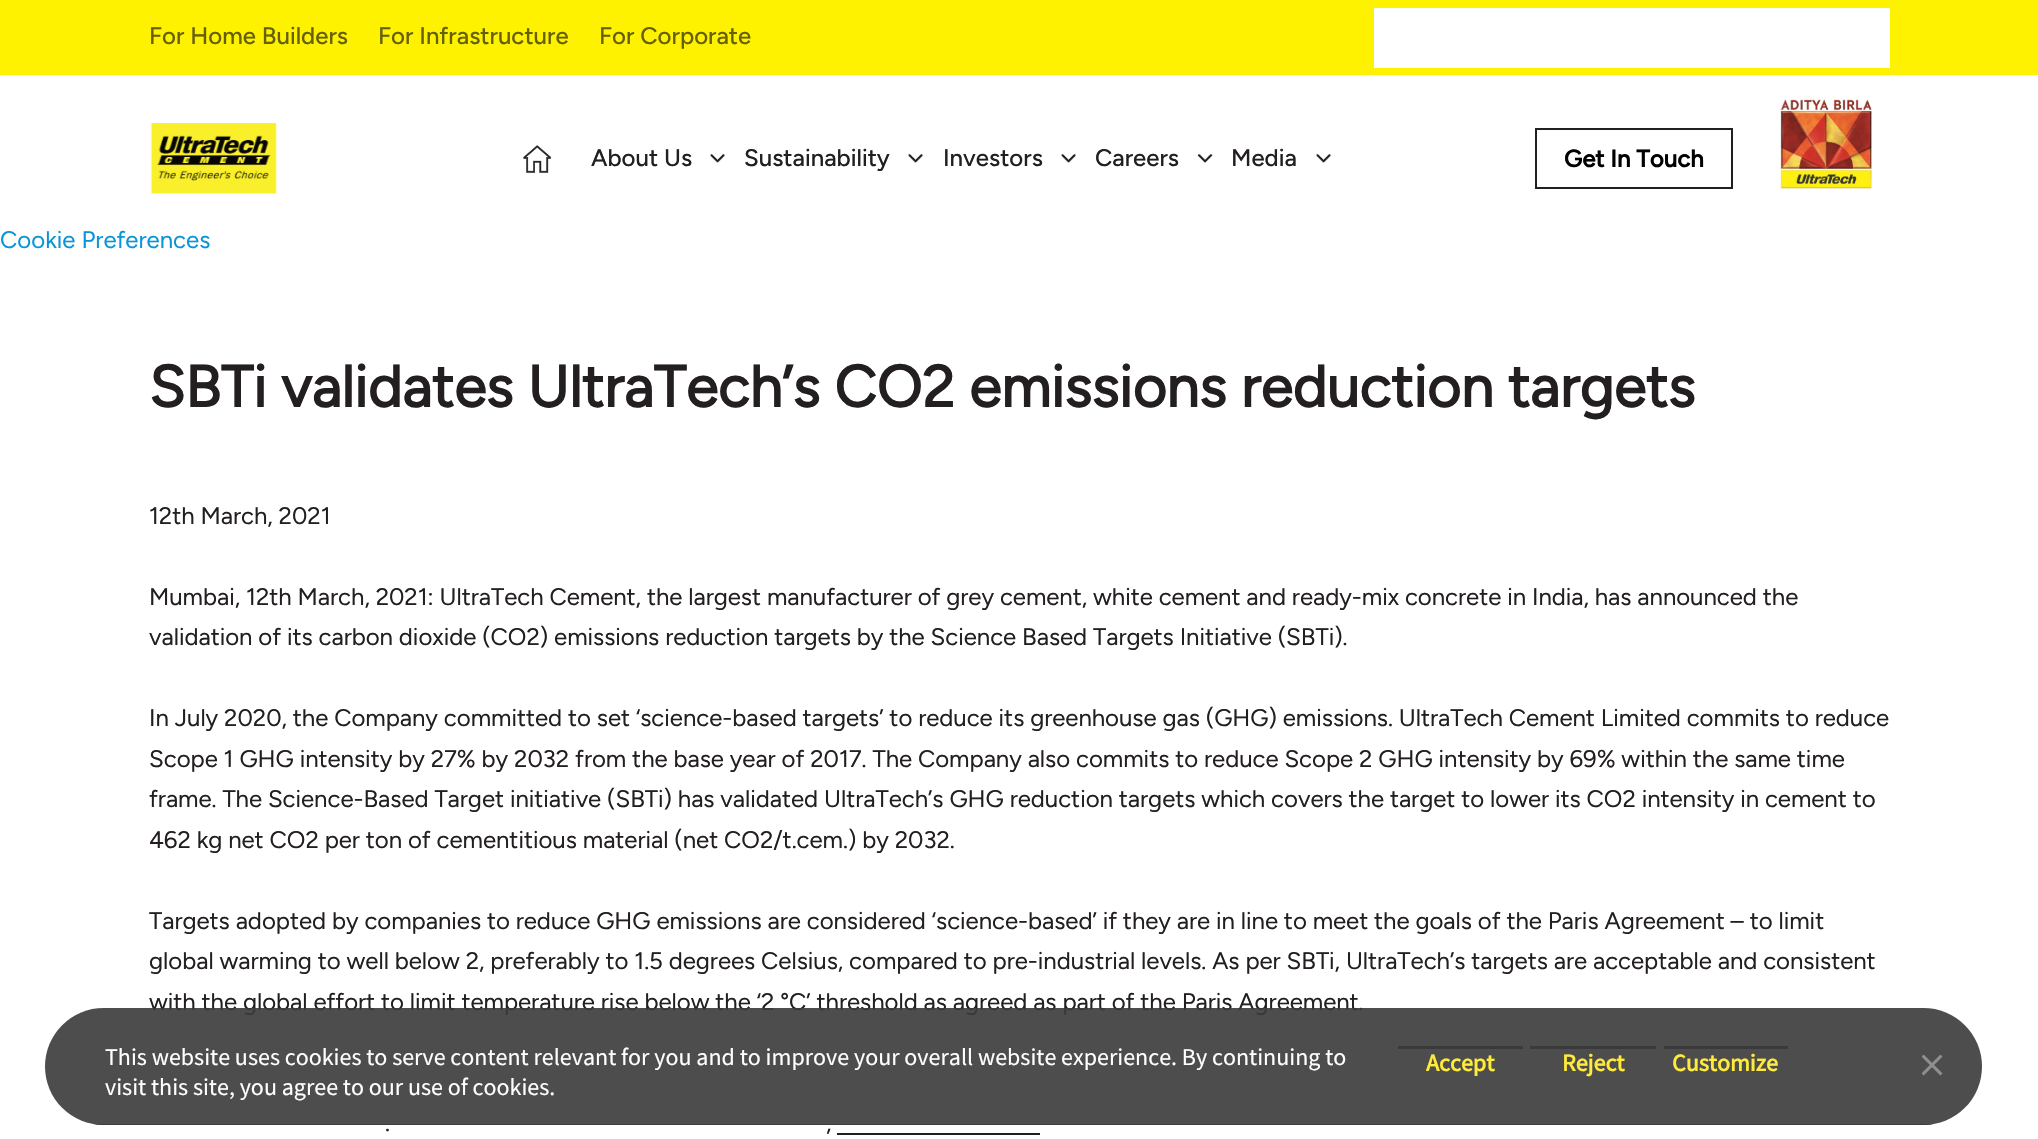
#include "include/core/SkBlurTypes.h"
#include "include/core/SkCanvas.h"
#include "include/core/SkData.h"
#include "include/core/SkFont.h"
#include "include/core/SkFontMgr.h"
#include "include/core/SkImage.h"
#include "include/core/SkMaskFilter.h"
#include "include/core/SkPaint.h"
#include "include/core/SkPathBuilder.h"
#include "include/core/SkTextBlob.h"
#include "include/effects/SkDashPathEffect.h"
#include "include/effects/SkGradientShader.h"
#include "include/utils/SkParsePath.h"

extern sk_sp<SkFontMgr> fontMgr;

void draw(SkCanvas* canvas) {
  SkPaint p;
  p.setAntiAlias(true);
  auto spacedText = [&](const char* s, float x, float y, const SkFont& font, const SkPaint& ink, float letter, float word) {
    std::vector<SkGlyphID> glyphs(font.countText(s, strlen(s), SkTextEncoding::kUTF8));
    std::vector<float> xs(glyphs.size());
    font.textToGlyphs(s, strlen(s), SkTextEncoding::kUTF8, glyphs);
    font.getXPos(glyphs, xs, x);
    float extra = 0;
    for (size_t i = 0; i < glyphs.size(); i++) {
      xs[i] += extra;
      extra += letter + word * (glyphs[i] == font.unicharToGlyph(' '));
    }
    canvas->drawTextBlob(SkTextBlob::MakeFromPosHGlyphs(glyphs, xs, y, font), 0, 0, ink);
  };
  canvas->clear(SK_ColorWHITE);
  p.setColor(SkColorSetRGB(255, 242, 0));
  canvas->drawRect(SkRect::MakeLTRB(0, 0, 2038, 75), p);
  p.setColor(SK_ColorWHITE);
  canvas->drawRect(SkRect::MakeLTRB(1374, 8, 1890, 68), p);
  canvas->drawImageRect(SkImages::DeferredFromEncodedData(SkData::MakeFromFileName("images/1.png")), SkRect::MakeLTRB(150, 123, 277, 194), SkSamplingOptions());
  canvas->drawImageRect(SkImages::DeferredFromEncodedData(SkData::MakeFromFileName("images/2.png")), SkRect::MakeLTRB(523, 145, 552, 173), SkSamplingOptions());
  canvas->drawImageRect(SkImages::DeferredFromEncodedData(SkData::MakeFromFileName("images/3.png")), SkRect::MakeLTRB(710, 154, 725, 163), SkSamplingOptions());
  canvas->drawImageRect(SkImages::DeferredFromEncodedData(SkData::MakeFromFileName("images/3.png")), SkRect::MakeLTRB(908, 154, 923, 163), SkSamplingOptions());
  canvas->drawImageRect(SkImages::DeferredFromEncodedData(SkData::MakeFromFileName("images/3.png")), SkRect::MakeLTRB(1061, 154, 1076, 163), SkSamplingOptions());
  canvas->drawImageRect(SkImages::DeferredFromEncodedData(SkData::MakeFromFileName("images/4.png")), SkRect::MakeLTRB(1197, 154, 1213, 163), SkSamplingOptions());
  canvas->drawImageRect(SkImages::DeferredFromEncodedData(SkData::MakeFromFileName("images/3.png")), SkRect::MakeLTRB(1316, 154, 1331, 163), SkSamplingOptions());
  p.setStyle(SkPaint::kStroke_Style);
  p.setStrokeWidth(2);
  p.setColor(SkColorSetRGB(35, 31, 32));
  canvas->drawRect(SkRect::MakeLTRB(1536, 129, 1732, 188), p);
  canvas->drawImageRect(SkImages::DeferredFromEncodedData(SkData::MakeFromFileName("images/5.png")), SkRect::MakeLTRB(1780, 99, 1872, 189), SkSamplingOptions());
  p.setStyle(SkPaint::kFill_Style);
  canvas->drawRect(SkRect::MakeLTRB(837, 1133, 1040, 1135), p);
  SkFont font1(fontMgr->matchFamilyStyle("Figtree", SkFontStyle(500, SkFontStyle::kNormal_Width, SkFontStyle::kUpright_Slant)), 24);
  font1.setSubpixel(true);
  p.setColor(SkColorSetRGB(102, 97, 0));
  canvas->drawString("For Home Builders", 149, 44, font1, p);
  canvas->drawString("For Infrastructure", 378, 44, font1, p);
  canvas->drawString("For Corporate", 599, 44, font1, p);
  p.setColor(SkColorSetRGB(35, 31, 32));
  canvas->drawString("About Us", 591, 166, font1, p);
  canvas->drawString("Sustainability", 744, 166, font1, p);
  canvas->drawString("Investors", 943, 166, font1, p);
  canvas->drawString("Careers", 1095, 166, font1, p);
  canvas->drawString("Media", 1231, 166, font1, p);
  SkFont font2(fontMgr->matchFamilyStyle("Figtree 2", SkFontStyle::Bold()), 24);
  font2.setSubpixel(true);
  p.setColor(SK_ColorBLACK);
  canvas->drawString("Get In Touch", 1564, 167, font2, p);
  SkFont font3(fontMgr->matchFamilyStyle("Figtree", SkFontStyle::Normal()), 24);
  font3.setSubpixel(true);
  p.setColor(SkColorSetRGB(9, 148, 219));
  canvas->drawString("Cookie Preferences", 0, 248, font3, p);
  SkFont font4(fontMgr->matchFamilyStyle("Figtree", SkFontStyle::Bold()), 58.5f);
  font4.setSubpixel(true);
  p.setColor(SkColorSetRGB(35, 31, 32));
  canvas->drawString("SBTi validates UltraTech’s CO2 emissions reduction targets", 149, 407, font4, p);
  spacedText("12th March, 2021", 149, 524, font3, p, -0.04f, 0);
  spacedText("Mumbai, 12th March, 2021: UltraTech Cement, the largest manufacturer of grey cement, white cement and ready-mix concrete in India, has announced the", 149, 605, font3, p, -0.04f, 0);
  spacedText("validation of its carbon dioxide (CO2) emissions reduction targets by the Science Based Targets Initiative (SBTi).", 149, 645, font3, p, -0.04f, 0);
  spacedText("In July 2020, the Company committed to set ‘science-based targets’ to reduce its greenhouse gas (GHG) emissions. UltraTech Cement Limited commits to reduce", 149, 726, font3, p, -0.04f, 0);
  spacedText("Scope 1 GHG intensity by 27% by 2032 from the base year of 2017. The Company also commits to reduce Scope 2 GHG intensity by 69% within the same time", 149, 767, font3, p, -0.04f, 0);
  spacedText("frame. The Science-Based Target initiative (SBTi) has validated UltraTech’s GHG reduction targets which covers the target to lower its CO2 intensity in cement to", 149, 807, font3, p, -0.04f, 0);
  spacedText("462 kg net CO2 per ton of cementitious material (net CO2/t.cem.) by 2032.", 149, 848, font3, p, -0.04f, 0);
  spacedText("Targets adopted by companies to reduce GHG emissions are considered ‘science-based’ if they are in line to meet the goals of the Paris Agreement – to limit", 149, 929, font3, p, -0.04f, 0);
  spacedText("global warming to well below 2, preferably to 1.5 degrees Celsius, compared to pre-industrial levels. As per SBTi, UltraTech’s targets are acceptable and consistent", 149, 969, font3, p, -0.04f, 0);
  spacedText("with the global effort to limit temperature rise below the ‘2 °C’ threshold as agreed as part of the Paris Agreement.", 149, 1010, font3, p, -0.04f, 0);
  spacedText(".", 385, 1131, font3, p, -0.04f, 0);
  spacedText(",", 826, 1131, font3, p, -0.04f, 0);
  p.setColor(SkColorSetARGB(230, 58, 58, 58));
  canvas->drawRoundRect(SkRect::MakeLTRB(45, 1008, 1982, 1125), 58.5f, 58.5f, p);
  SkFont font5(fontMgr->matchFamilyStyle("Source Sans Pro", SkFontStyle::Normal()), 24);
  font5.setSubpixel(true);
  p.setColor(SK_ColorWHITE);
  canvas->drawString("This website uses cookies to serve content relevant for you and to improve your overall website experience. By continuing to", 105, 1065, font5, p);
  canvas->drawString("visit this site, you agree to our use of cookies.", 105, 1095, font5, p);
  p.setColor(SkColorSetRGB(58, 58, 58));
  canvas->drawRect(SkRect::MakeLTRB(1398, 1046, 1523, 1049), p);
  SkFont font6(fontMgr->matchFamilyStyle("Source Sans Pro", SkFontStyle::Bold()), 24);
  font6.setSubpixel(true);
  p.setColor(SkColorSetRGB(255, 235, 59));
  canvas->drawString("Accept", 1426, 1071, font6, p);
  p.setColor(SkColorSetRGB(58, 58, 58));
  canvas->drawRect(SkRect::MakeLTRB(1530, 1046, 1656, 1049), p);
  p.setColor(SkColorSetRGB(255, 235, 59));
  canvas->drawString("Reject", 1562, 1071, font6, p);
  p.setColor(SkColorSetRGB(58, 58, 58));
  canvas->drawRect(SkRect::MakeLTRB(1664, 1046, 1788, 1049), p);
  p.setColor(SkColorSetRGB(255, 235, 59));
  canvas->drawString("Customize", 1672, 1071, font6, p);
  canvas->drawImageRect(SkImages::DeferredFromEncodedData(SkData::MakeFromFileName("images/6.png")), SkRect::MakeLTRB(1922, 1055, 1943, 1076), SkSamplingOptions());
  canvas->save();
  canvas->clipPath(SkPathBuilder().moveTo(103.5f, 1008).lineTo(1923.5f, 1008).cubicTo(1956, 1008, 1982, 1034, 1982, 1066.5f).cubicTo(1982, 1099, 1956, 1125, 1923.5f, 1125).lineTo(103.5f, 1125).cubicTo(71, 1125, 45, 1099, 45, 1066.5f).cubicTo(45, 1034, 71, 1008, 103.5f, 1008).close().detach(), true);
  p.setColor(SkColorSetARGB(230, 58, 58, 58));
  canvas->drawRect(SkRect::MakeLTRB(93, 1124, 1934, 1125), p);
  canvas->restore();
}
